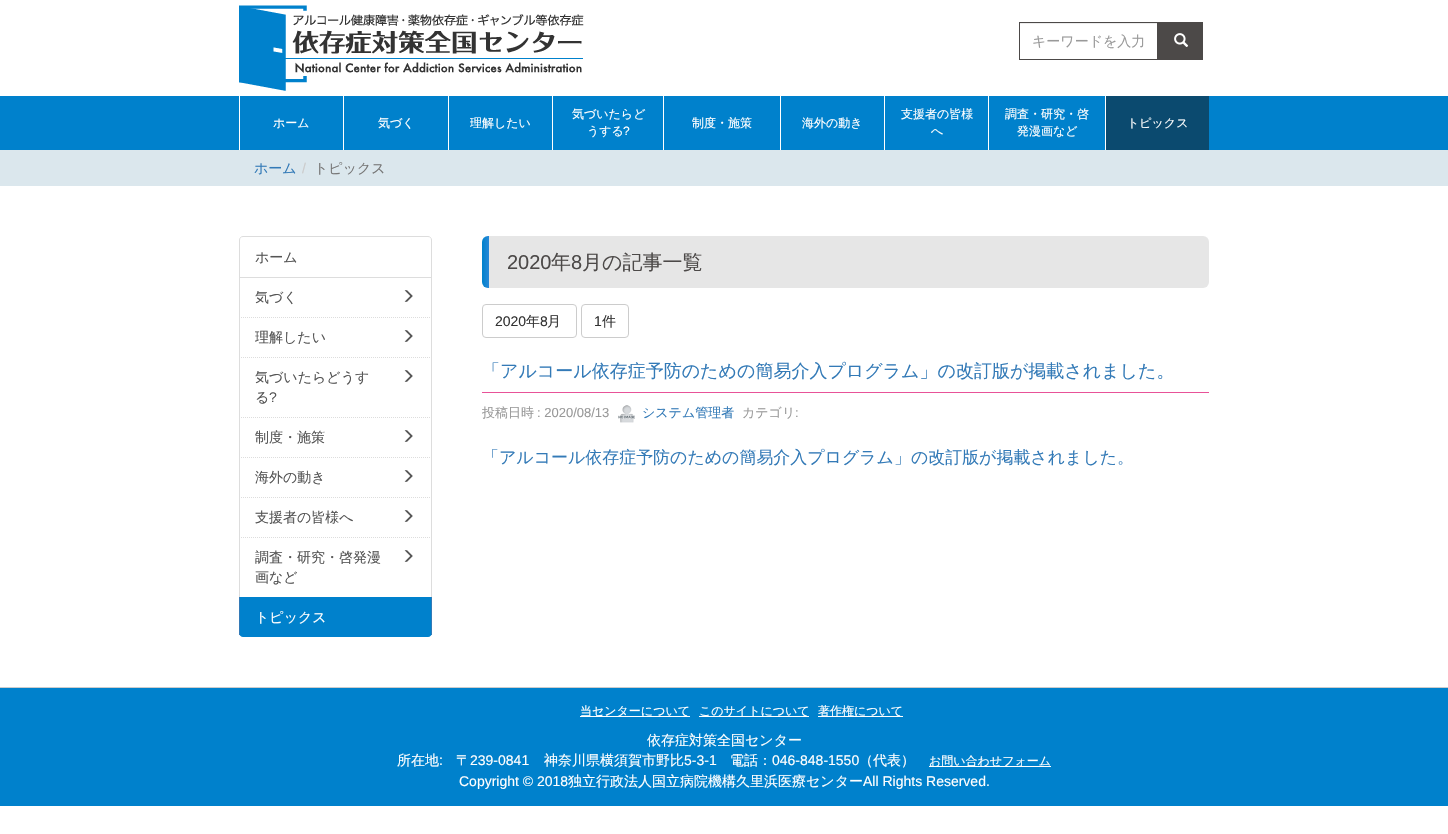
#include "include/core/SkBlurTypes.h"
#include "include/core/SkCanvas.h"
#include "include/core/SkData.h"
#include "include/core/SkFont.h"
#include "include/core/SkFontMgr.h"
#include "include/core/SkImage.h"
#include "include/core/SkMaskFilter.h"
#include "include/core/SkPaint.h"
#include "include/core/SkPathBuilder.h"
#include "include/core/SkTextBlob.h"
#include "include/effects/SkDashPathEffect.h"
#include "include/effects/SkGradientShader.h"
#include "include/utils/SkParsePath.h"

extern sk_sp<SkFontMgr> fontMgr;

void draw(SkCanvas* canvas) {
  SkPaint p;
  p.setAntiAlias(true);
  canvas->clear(SK_ColorWHITE);
  canvas->drawImageRect(SkImages::DeferredFromEncodedData(SkData::MakeFromFileName("images/1.png")), SkRect::MakeLTRB(239, 5, 584, 91), SkSamplingOptions());
  p.setColor(SkColorSetRGB(236, 236, 236));
  canvas->drawRect(SkRect::MakeLTRB(1020, 23, 1157, 24), p);
  p.setStyle(SkPaint::kStroke_Style);
  p.setStrokeWidth(1);
  p.setColor(SkColorSetRGB(76, 73, 72));
  canvas->drawRect(SkRect::MakeLTRB(1019.5f, 22.5f, 1157.5f, 59.5f), p);
  p.setStyle(SkPaint::kFill_Style);
  canvas->drawRect(SkRect::MakeLTRB(1158, 22, 1203, 60), p);
  canvas->drawImageRect(SkImages::DeferredFromEncodedData(SkData::MakeFromFileName("images/2.png")), SkRect::MakeLTRB(1174, 33, 1189, 47), SkSamplingOptions());
  p.setColor(SkColorSetRGB(0, 129, 204));
  canvas->drawRect(SkRect::MakeLTRB(0, 96, 1448, 150), p);
  p.setColor(SK_ColorWHITE);
  canvas->drawRect(SkRect::MakeLTRB(239, 96, 240, 150), p);
  canvas->drawRect(SkRect::MakeLTRB(343, 96, 344, 150), p);
  canvas->drawRect(SkRect::MakeLTRB(448, 96, 449, 150), p);
  canvas->drawRect(SkRect::MakeLTRB(552, 96, 553, 150), p);
  canvas->drawRect(SkRect::MakeLTRB(663, 96, 664, 150), p);
  canvas->drawRect(SkRect::MakeLTRB(780, 96, 781, 150), p);
  canvas->drawRect(SkRect::MakeLTRB(884, 96, 885, 150), p);
  canvas->drawRect(SkRect::MakeLTRB(988, 96, 989, 150), p);
  p.setColor(SkColorSetRGB(11, 74, 111));
  canvas->drawRect(SkRect::MakeLTRB(1106, 96, 1209, 150), p);
  p.setColor(SK_ColorWHITE);
  canvas->drawRect(SkRect::MakeLTRB(1105, 96, 1106, 150), p);
  p.setColor(SkColorSetRGB(219, 231, 237));
  canvas->drawRect(SkRect::MakeLTRB(0, 150, 1448, 186), p);
  p.setStyle(SkPaint::kStroke_Style);
  p.setColor(SkColorSetRGB(221, 221, 221));
  canvas->drawPath(SkPathBuilder().moveTo(243, 236.5f).lineTo(428, 236.5f).cubicTo(430, 236.5f, 431.5f, 238, 431.5f, 240).lineTo(431.5f, 277.5f).lineTo(239.5f, 277.5f).lineTo(239.5f, 240).cubicTo(239.5f, 238, 241, 236.5f, 243, 236.5f).close().detach(), p);
  p.setStyle(SkPaint::kFill_Style);
  canvas->drawRect(SkRect::MakeLTRB(431, 277, 432, 318), p);
  p.setStyle(SkPaint::kStroke_Style);
  p.setPathEffect(SkDashPathEffect::Make({{1, 1}}, 0));
  canvas->drawPath(SkPathBuilder().moveTo(239, 317.5f).lineTo(432, 317.5f).detach(), p);
  p.setPathEffect(nullptr);
  p.setStyle(SkPaint::kFill_Style);
  canvas->drawRect(SkRect::MakeLTRB(239, 277, 240, 318), p);
  canvas->drawImageRect(SkImages::DeferredFromEncodedData(SkData::MakeFromFileName("images/3.png")), SkRect::MakeLTRB(404, 290, 413, 302), SkSamplingOptions());
  canvas->drawRect(SkRect::MakeLTRB(431, 317, 432, 358), p);
  p.setStyle(SkPaint::kStroke_Style);
  p.setPathEffect(SkDashPathEffect::Make({{1, 1}}, 0));
  canvas->drawPath(SkPathBuilder().moveTo(239, 357.5f).lineTo(432, 357.5f).detach(), p);
  p.setPathEffect(nullptr);
  p.setStyle(SkPaint::kFill_Style);
  canvas->drawRect(SkRect::MakeLTRB(239, 317, 240, 358), p);
  canvas->drawImageRect(SkImages::DeferredFromEncodedData(SkData::MakeFromFileName("images/3.png")), SkRect::MakeLTRB(404, 330, 413, 342), SkSamplingOptions());
  canvas->drawRect(SkRect::MakeLTRB(431, 357, 432, 418), p);
  p.setStyle(SkPaint::kStroke_Style);
  p.setPathEffect(SkDashPathEffect::Make({{1, 1}}, 0));
  canvas->drawPath(SkPathBuilder().moveTo(239, 417.5f).lineTo(432, 417.5f).detach(), p);
  p.setPathEffect(nullptr);
  p.setStyle(SkPaint::kFill_Style);
  canvas->drawRect(SkRect::MakeLTRB(239, 357, 240, 418), p);
  canvas->drawImageRect(SkImages::DeferredFromEncodedData(SkData::MakeFromFileName("images/3.png")), SkRect::MakeLTRB(404, 370, 413, 382), SkSamplingOptions());
  canvas->drawRect(SkRect::MakeLTRB(431, 417, 432, 458), p);
  p.setStyle(SkPaint::kStroke_Style);
  p.setPathEffect(SkDashPathEffect::Make({{1, 1}}, 0));
  canvas->drawPath(SkPathBuilder().moveTo(239, 457.5f).lineTo(432, 457.5f).detach(), p);
  p.setPathEffect(nullptr);
  p.setStyle(SkPaint::kFill_Style);
  canvas->drawRect(SkRect::MakeLTRB(239, 417, 240, 458), p);
  canvas->drawImageRect(SkImages::DeferredFromEncodedData(SkData::MakeFromFileName("images/3.png")), SkRect::MakeLTRB(404, 430, 413, 442), SkSamplingOptions());
  canvas->drawRect(SkRect::MakeLTRB(431, 457, 432, 498), p);
  p.setStyle(SkPaint::kStroke_Style);
  p.setPathEffect(SkDashPathEffect::Make({{1, 1}}, 0));
  canvas->drawPath(SkPathBuilder().moveTo(239, 497.5f).lineTo(432, 497.5f).detach(), p);
  p.setPathEffect(nullptr);
  p.setStyle(SkPaint::kFill_Style);
  canvas->drawRect(SkRect::MakeLTRB(239, 457, 240, 498), p);
  canvas->drawImageRect(SkImages::DeferredFromEncodedData(SkData::MakeFromFileName("images/3.png")), SkRect::MakeLTRB(404, 470, 413, 482), SkSamplingOptions());
  canvas->drawRect(SkRect::MakeLTRB(431, 497, 432, 538), p);
  p.setStyle(SkPaint::kStroke_Style);
  p.setPathEffect(SkDashPathEffect::Make({{1, 1}}, 0));
  canvas->drawPath(SkPathBuilder().moveTo(239, 537.5f).lineTo(432, 537.5f).detach(), p);
  p.setPathEffect(nullptr);
  p.setStyle(SkPaint::kFill_Style);
  canvas->drawRect(SkRect::MakeLTRB(239, 497, 240, 598), p);
  canvas->drawImageRect(SkImages::DeferredFromEncodedData(SkData::MakeFromFileName("images/3.png")), SkRect::MakeLTRB(404, 510, 413, 522), SkSamplingOptions());
  canvas->drawRect(SkRect::MakeLTRB(431, 537, 432, 598), p);
  canvas->drawImageRect(SkImages::DeferredFromEncodedData(SkData::MakeFromFileName("images/3.png")), SkRect::MakeLTRB(404, 550, 413, 562), SkSamplingOptions());
  p.setColor(SkColorSetRGB(0, 129, 204));
  canvas->drawPath(SkPathBuilder().moveTo(239, 597).lineTo(432, 597).lineTo(432, 633).cubicTo(432, 635, 430, 637, 428, 637).lineTo(243, 637).cubicTo(241, 637, 239, 635, 239, 633).close().detach(), p);
  p.setColor(SkColorSetRGB(51, 122, 183));
  canvas->drawRect(SkRect::MakeLTRB(431, 597, 432, 635), p);
  canvas->drawRect(SkRect::MakeLTRB(239, 597, 240, 635), p);
  {
    const SkColor colors[] = {SkColorSetRGB(0, 129, 204), SkColorSetRGB(41, 137, 216), SkColorSetRGB(230, 230, 230), SkColorSetRGB(230, 230, 230)};
    const float stops[] = {0, 0.01f, 0.01f, 1};
    const SkPoint ends[] = {{482, 262}, {1209, 262}};
    p.setShader(SkGradientShader::MakeLinear(ends, colors, stops, 4, SkTileMode::kClamp));
    p.setAlpha(255);
  }
  canvas->drawRoundRect(SkRect::MakeLTRB(482, 236, 1209, 288), 6, 6, p);
  p.setStyle(SkPaint::kStroke_Style);
  p.setShader(nullptr);
  p.setColor(SkColorSetRGB(204, 204, 204));
  canvas->drawRoundRect(SkRect::MakeLTRB(482.5f, 304.5f, 576.5f, 337.5f), 3.5f, 3.5f, p);
  canvas->drawRoundRect(SkRect::MakeLTRB(581.5f, 304.5f, 628.5f, 337.5f), 3.5f, 3.5f, p);
  p.setStyle(SkPaint::kFill_Style);
  p.setColor(SkColorSetRGB(232, 82, 152));
  canvas->drawRect(SkRect::MakeLTRB(482, 392, 1209, 393), p);
  canvas->drawImageRect(SkImages::DeferredFromEncodedData(SkData::MakeFromFileName("images/4.png")), SkRect::MakeLTRB(618, 405, 635, 423), SkSamplingOptions());
  p.setColor(SkColorSetRGB(0, 129, 204));
  canvas->drawRect(SkRect::MakeLTRB(0, 688, 1448, 806), p);
  p.setColor(SkColorSetRGB(204, 204, 204));
  canvas->drawRect(SkRect::MakeLTRB(0, 687, 1448, 688), p);
  p.setColor(SK_ColorWHITE);
  canvas->drawRect(SkRect::MakeLTRB(580, 716, 690, 717), p);
  canvas->drawRect(SkRect::MakeLTRB(699, 716, 809, 717), p);
  canvas->drawRect(SkRect::MakeLTRB(818, 716, 903, 717), p);
  canvas->drawRect(SkRect::MakeLTRB(929, 766, 1051, 767), p);
  SkFont font1(fontMgr->matchFamilyStyle("WenQuanYi Zen Hei", SkFontStyle(500, SkFontStyle::kNormal_Width, SkFontStyle::kUpright_Slant)), 14);
  font1.setSubpixel(true);
  p.setColor(SkColorSetRGB(153, 153, 153));
  canvas->drawString("キーワードを入力", 1032, 46, font1, p);
  SkFont font2(fontMgr->matchFamilyStyle("WenQuanYi Zen Hei", SkFontStyle(500, SkFontStyle::kNormal_Width, SkFontStyle::kUpright_Slant)), 12);
  font2.setSubpixel(true);
  p.setColor(SK_ColorWHITE);
  canvas->drawString("ホーム", 273, 127, font2, p);
  canvas->drawString("気づく", 378, 127, font2, p);
  canvas->drawString("理解したい", 470, 127, font2, p);
  canvas->drawString("気づいたらど", 572, 118, font2, p);
  canvas->drawString("うする", 587, 135, font2, p);
  SkFont font3(fontMgr->matchFamilyStyle("Liberation Sans", SkFontStyle::Normal()), 12);
  font3.setSubpixel(true);
  canvas->drawString("?", 623, 135, font3, p);
  canvas->drawString("制度・施策", 692, 127, font2, p);
  canvas->drawString("海外の動き", 802, 127, font2, p);
  canvas->drawString("支援者の皆様", 901, 118, font2, p);
  canvas->drawString("へ", 931, 135, font2, p);
  canvas->drawString("調査・研究・啓", 1005, 118, font2, p);
  canvas->drawString("発漫画など", 1017, 135, font2, p);
  canvas->drawString("トピックス", 1127, 127, font2, p);
  p.setColor(SkColorSetRGB(51, 122, 183));
  canvas->drawString("ホーム", 254, 173, font1, p);
  SkFont font4(fontMgr->matchFamilyStyle("Liberation Sans", SkFontStyle::Normal()), 14);
  font4.setSubpixel(true);
  p.setColor(SkColorSetRGB(204, 204, 204));
  canvas->drawString("/", 302, 173, font4, p);
  p.setColor(SkColorSetRGB(119, 119, 119));
  canvas->drawString("トピックス", 314, 173, font1, p);
  p.setColor(SkColorSetRGB(85, 85, 85));
  canvas->drawString("ホーム", 255, 262, font1, p);
  canvas->drawString("気づく", 255, 302, font1, p);
  canvas->drawString("理解したい", 255, 342, font1, p);
  canvas->drawString("気づいたらどうす", 255, 382, font1, p);
  canvas->drawString("る", 255, 402, font1, p);
  canvas->drawString("?", 269, 402, font4, p);
  canvas->drawString("制度・施策", 255, 442, font1, p);
  canvas->drawString("海外の動き", 255, 482, font1, p);
  canvas->drawString("支援者の皆様へ", 255, 522, font1, p);
  canvas->drawString("調査・研究・啓発漫", 255, 562, font1, p);
  canvas->drawString("画など", 255, 582, font1, p);
  p.setColor(SK_ColorWHITE);
  canvas->drawString("トピックス", 255, 622, font1, p);
  SkFont font5(fontMgr->matchFamilyStyle("Liberation Sans", SkFontStyle::Normal()), 20);
  font5.setSubpixel(true);
  p.setColor(SkColorSetRGB(76, 73, 72));
  canvas->drawString("2020", 507, 269, font5, p);
  SkFont font6(fontMgr->matchFamilyStyle("WenQuanYi Zen Hei", SkFontStyle(500, SkFontStyle::kNormal_Width, SkFontStyle::kUpright_Slant)), 20);
  font6.setSubpixel(true);
  canvas->drawString("年", 551, 269, font6, p);
  canvas->drawString("8", 571, 269, font5, p);
  canvas->drawString("月の記事一覧", 582, 269, font6, p);
  p.setColor(SkColorSetRGB(51, 51, 51));
  canvas->drawString("2020", 495, 326, font4, p);
  canvas->drawString("年", 526, 326, font1, p);
  canvas->drawString("8", 540, 326, font4, p);
  canvas->drawString("月", 547, 326, font1, p);
  canvas->drawString("1", 594, 326, font4, p);
  canvas->drawString("件", 602, 326, font1, p);
  SkFont font7(fontMgr->matchFamilyStyle("WenQuanYi Zen Hei", SkFontStyle(500, SkFontStyle::kNormal_Width, SkFontStyle::kUpright_Slant)), 18);
  font7.setSubpixel(true);
  p.setColor(SkColorSetRGB(51, 122, 183));
  canvas->drawString("「アルコール依存症予防のための簡易介入プログラム」の改訂版が掲載されました。", 482, 377, font7, p);
  SkFont font8(fontMgr->matchFamilyStyle("WenQuanYi Zen Hei", SkFontStyle(500, SkFontStyle::kNormal_Width, SkFontStyle::kUpright_Slant)), 13);
  font8.setSubpixel(true);
  p.setColor(SkColorSetRGB(153, 153, 153));
  canvas->drawString("投稿日時", 482, 417, font8, p);
  SkFont font9(fontMgr->matchFamilyStyle("Liberation Sans", SkFontStyle::Normal()), 13);
  font9.setSubpixel(true);
  canvas->drawString(": 2020/08/13", 537, 417, font9, p);
  p.setColor(SkColorSetRGB(51, 122, 183));
  canvas->drawString("システム管理者", 642, 417, font8, p);
  p.setColor(SkColorSetRGB(153, 153, 153));
  canvas->drawString("カテゴリ", 742, 417, font8, p);
  canvas->drawString(":", 795, 417, font9, p);
  SkFont font10(fontMgr->matchFamilyStyle("WenQuanYi Zen Hei", SkFontStyle(500, SkFontStyle::kNormal_Width, SkFontStyle::kUpright_Slant)), 16.95f);
  font10.setSubpixel(true);
  p.setColor(SkColorSetRGB(51, 122, 183));
  canvas->drawString("「アルコール依存症予防のための簡易介入プログラム」の改訂版が掲載されました。", 482, 463, font10, p);
  p.setColor(SK_ColorWHITE);
  canvas->drawString("当センターについて", 580, 715, font2, p);
  canvas->drawString("このサイトについて", 699, 715, font2, p);
  canvas->drawString("著作権について", 818, 715, font2, p);
  canvas->drawString("依存症対策全国センター", 647, 745, font1, p);
  canvas->drawString("所在地", 397, 765, font1, p);
  canvas->drawString(":", 439, 765, font4, p);
  canvas->drawString("〒", 456, 765, font1, p);
  canvas->drawString("239-0841", 470, 765, font4, p);
  canvas->drawString("神奈川県横須賀市野比", 544, 765, font1, p);
  canvas->drawString("5-3-1", 684, 765, font4, p);
  canvas->drawString("電話：", 730, 765, font1, p);
  canvas->drawString("046-848-1550", 772, 765, font4, p);
  canvas->drawString("（代表）", 859, 765, font1, p);
  canvas->drawString("お問い合わせフォーム", 929, 765, font2, p);
  canvas->drawString("Copyright © 2018", 459, 786, font4, p);
  canvas->drawString("独立行政法人国立病院機構久里浜医療センター", 568, 786, font1, p);
  canvas->drawString("All Rights Reserved.", 863, 786, font4, p);
}
